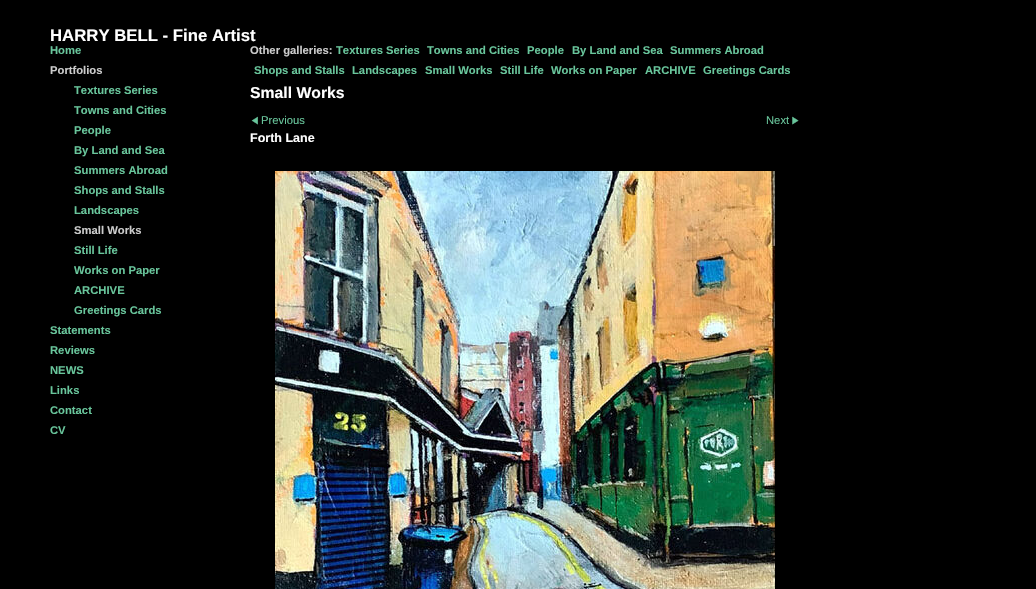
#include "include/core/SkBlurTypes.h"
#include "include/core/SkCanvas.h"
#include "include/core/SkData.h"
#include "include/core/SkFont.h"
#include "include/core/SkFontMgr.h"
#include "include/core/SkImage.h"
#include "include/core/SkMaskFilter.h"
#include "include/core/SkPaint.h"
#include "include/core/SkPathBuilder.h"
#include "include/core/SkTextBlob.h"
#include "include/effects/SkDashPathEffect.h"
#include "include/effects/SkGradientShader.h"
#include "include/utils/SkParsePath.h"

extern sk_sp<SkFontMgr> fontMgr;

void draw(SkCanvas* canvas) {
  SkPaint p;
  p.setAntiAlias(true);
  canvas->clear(SK_ColorBLACK);
  canvas->drawImageRect(SkImages::DeferredFromEncodedData(SkData::MakeFromFileName("images/1.png")), SkRect::MakeLTRB(251, 116, 258, 125), SkSamplingOptions());
  canvas->drawImageRect(SkImages::DeferredFromEncodedData(SkData::MakeFromFileName("images/2.png")), SkRect::MakeLTRB(792, 116, 799, 125), SkSamplingOptions());
  canvas->drawImageRect(SkImages::DeferredFromEncodedData(SkData::MakeFromFileName("images/3.png")), SkRect::MakeLTRB(275, 171, 775, 589), SkSamplingOptions());
  SkFont font1(fontMgr->matchFamilyStyle("Liberation Sans", SkFontStyle::Bold()), 16.75f);
  font1.setSubpixel(true);
  p.setColor(SK_ColorWHITE);
  canvas->drawString("HARRY BELL - Fine Artist", 50, 41, font1, p);
  SkFont font2(fontMgr->matchFamilyStyle("Liberation Sans", SkFontStyle::Bold()), 11.25f);
  font2.setSubpixel(true);
  p.setColor(SkColorSetRGB(105, 198, 156));
  canvas->drawString("Home", 50, 54, font2, p);
  p.setColor(SkColorSetRGB(204, 204, 204));
  canvas->drawString("Portfolios", 50, 74, font2, p);
  p.setColor(SkColorSetRGB(105, 198, 156));
  canvas->drawString("Statements", 50, 334, font2, p);
  canvas->drawString("Reviews", 50, 354, font2, p);
  canvas->drawString("NEWS", 50, 374, font2, p);
  canvas->drawString("Links", 50, 394, font2, p);
  canvas->drawString("Contact", 50, 414, font2, p);
  canvas->drawString("CV", 50, 434, font2, p);
  p.setColor(SkColorSetRGB(204, 204, 204));
  canvas->drawString("Other galleries:", 250, 54, font2, p);
  p.setColor(SkColorSetRGB(105, 198, 156));
  canvas->drawString("Textures Series", 336, 54, font2, p);
  canvas->drawString("Towns and Cities", 427, 54, font2, p);
  canvas->drawString("People", 527, 54, font2, p);
  canvas->drawString("By Land and Sea", 572, 54, font2, p);
  canvas->drawString("Summers Abroad", 670, 54, font2, p);
  canvas->drawString("Shops and Stalls", 254, 74, font2, p);
  canvas->drawString("Landscapes", 352, 74, font2, p);
  canvas->drawString("Small Works", 425, 74, font2, p);
  canvas->drawString("Still Life", 500, 74, font2, p);
  canvas->drawString("Works on Paper", 551, 74, font2, p);
  canvas->drawString("ARCHIVE", 645, 74, font2, p);
  canvas->drawString("Greetings Cards", 703, 74, font2, p);
  SkFont font3(fontMgr->matchFamilyStyle("Liberation Sans", SkFontStyle::Bold()), 15.75f);
  font3.setSubpixel(true);
  p.setColor(SK_ColorWHITE);
  canvas->drawString("Small Works", 250, 98, font3, p);
  SkFont font4(fontMgr->matchFamilyStyle("Liberation Sans", SkFontStyle::Normal()), 11.25f);
  font4.setSubpixel(true);
  p.setColor(SkColorSetRGB(105, 198, 156));
  canvas->drawString("Previous", 261, 124, font4, p);
  canvas->drawString("Next", 766, 124, font4, p);
  SkFont font5(fontMgr->matchFamilyStyle("Liberation Sans", SkFontStyle::Bold()), 12.5f);
  font5.setSubpixel(true);
  p.setColor(SK_ColorWHITE);
  canvas->drawString("Forth Lane", 250, 142, font5, p);
  p.setColor(SkColorSetRGB(105, 198, 156));
  canvas->drawString("Textures Series", 74, 94, font2, p);
  canvas->drawString("Towns and Cities", 74, 114, font2, p);
  canvas->drawString("People", 74, 134, font2, p);
  canvas->drawString("By Land and Sea", 74, 154, font2, p);
  canvas->drawString("Summers Abroad", 74, 174, font2, p);
  canvas->drawString("Shops and Stalls", 74, 194, font2, p);
  canvas->drawString("Landscapes", 74, 214, font2, p);
  p.setColor(SkColorSetRGB(204, 204, 204));
  canvas->drawString("Small Works", 74, 234, font2, p);
  p.setColor(SkColorSetRGB(105, 198, 156));
  canvas->drawString("Still Life", 74, 254, font2, p);
  canvas->drawString("Works on Paper", 74, 274, font2, p);
  canvas->drawString("ARCHIVE", 74, 294, font2, p);
  canvas->drawString("Greetings Cards", 74, 314, font2, p);
}
